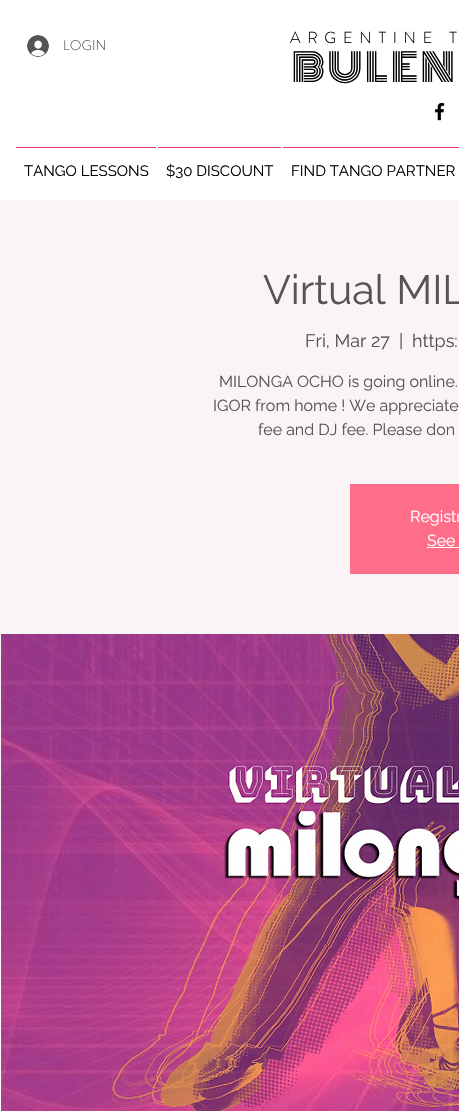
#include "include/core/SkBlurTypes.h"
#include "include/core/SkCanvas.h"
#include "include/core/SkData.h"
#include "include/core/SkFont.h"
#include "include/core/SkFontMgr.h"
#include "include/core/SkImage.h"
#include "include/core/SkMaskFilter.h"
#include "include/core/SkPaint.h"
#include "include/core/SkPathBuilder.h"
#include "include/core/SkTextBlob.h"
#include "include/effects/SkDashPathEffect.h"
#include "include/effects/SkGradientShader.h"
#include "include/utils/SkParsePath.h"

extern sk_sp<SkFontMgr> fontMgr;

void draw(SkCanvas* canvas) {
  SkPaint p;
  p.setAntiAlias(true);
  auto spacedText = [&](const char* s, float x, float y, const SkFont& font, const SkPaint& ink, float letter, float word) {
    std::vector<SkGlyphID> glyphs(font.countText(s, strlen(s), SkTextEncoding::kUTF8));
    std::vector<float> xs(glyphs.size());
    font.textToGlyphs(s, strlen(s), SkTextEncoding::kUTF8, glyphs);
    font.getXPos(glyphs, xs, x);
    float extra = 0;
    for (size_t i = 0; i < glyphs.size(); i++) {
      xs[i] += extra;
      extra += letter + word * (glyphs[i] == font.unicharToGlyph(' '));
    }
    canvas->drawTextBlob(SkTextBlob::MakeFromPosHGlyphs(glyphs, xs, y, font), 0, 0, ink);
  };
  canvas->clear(SK_ColorWHITE);
  canvas->drawImageRect(SkImages::DeferredFromEncodedData(SkData::MakeFromFileName("images/1.png")), SkRect::MakeLTRB(27, 35, 49, 57), SkSamplingOptions());
  canvas->drawImageRect(SkImages::DeferredFromEncodedData(SkData::MakeFromFileName("images/2.png")), SkRect::MakeLTRB(434, 102, 445, 121), SkSamplingOptions());
  p.setColor(SkColorSetRGB(218, 50, 118));
  canvas->drawRect(SkRect::MakeLTRB(16, 147, 156, 148), p);
  canvas->drawRect(SkRect::MakeLTRB(158, 147, 281, 148), p);
  canvas->drawRect(SkRect::MakeLTRB(283, 147, 459, 148), p);
  p.setColor(SkColorSetRGB(250, 244, 246));
  canvas->drawRect(SkRect::MakeLTRB(0, 200, 459, 910), p);
  p.setColor(SkColorSetRGB(255, 110, 136));
  canvas->drawRect(SkRect::MakeLTRB(350, 484, 459, 574), p);
  p.setColor(SK_ColorWHITE);
  canvas->drawRect(SkRect::MakeLTRB(427, 547, 459, 548), p);
  canvas->drawImageRect(SkImages::DeferredFromEncodedData(SkData::MakeFromFileName("images/3.png")), SkRect::MakeLTRB(1, 634, 459, 1111), SkSamplingOptions());
  SkFont font1(fontMgr->matchFamilyStyle("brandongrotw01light", SkFontStyle(300, SkFontStyle::kNormal_Width, SkFontStyle::kUpright_Slant)), 14);
  font1.setSubpixel(true);
  p.setColor(SkColorSetRGB(84, 84, 84));
  canvas->drawString("LOGIN", 63, 50, font1, p);
  SkFont font2(fontMgr->matchFamilyStyle("brandongrotw01light", SkFontStyle(300, SkFontStyle::kNormal_Width, SkFontStyle::kUpright_Slant)), 16);
  font2.setSubpixel(true);
  p.setColor(SK_ColorBLACK);
  spacedText("ARGENTINE T", 290, 43, font2, p, 6.75f, 0);
  SkFont font3(fontMgr->matchFamilyStyle("Monoton", SkFontStyle::Normal()), 38);
  font3.setSubpixel(true);
  spacedText("BULEN", 292, 82, font3, p, 3, 0);
  SkFont font4(fontMgr->matchFamilyStyle("Raleway", SkFontStyle::Normal()), 15);
  font4.setSubpixel(true);
  canvas->drawString("TANGO LESSONS", 24, 176, font4, p);
  canvas->drawString("$30 DISCOUNT", 166, 176, font4, p);
  canvas->drawString("FIND TANGO PARTNER", 291, 176, font4, p);
  SkFont font5(fontMgr->matchFamilyStyle("Raleway", SkFontStyle::Normal()), 41);
  font5.setSubpixel(true);
  p.setColor(SkColorSetRGB(84, 84, 84));
  canvas->drawString("Virtual MIL", 263, 304, font5, p);
  SkFont font6(fontMgr->matchFamilyStyle("Raleway", SkFontStyle::Normal()), 18);
  font6.setSubpixel(true);
  canvas->drawString("Fri, Mar 27", 305, 347, font6, p);
  canvas->drawString("|", 399, 347, font6, p);
  canvas->drawString("https:", 412, 347, font6, p);
  SkFont font7(fontMgr->matchFamilyStyle("Raleway", SkFontStyle::Normal()), 16);
  font7.setSubpixel(true);
  canvas->drawString("MILONGA OCHO is going online.", 219, 387, font7, p);
  canvas->drawString("IGOR from home ! We appreciate", 213, 411, font7, p);
  canvas->drawString("fee and DJ fee. Please don", 258, 435, font7, p);
  p.setColor(SK_ColorWHITE);
  canvas->drawString("Registr", 410, 522, font7, p);
  canvas->drawString("See", 427, 546, font7, p);
}
